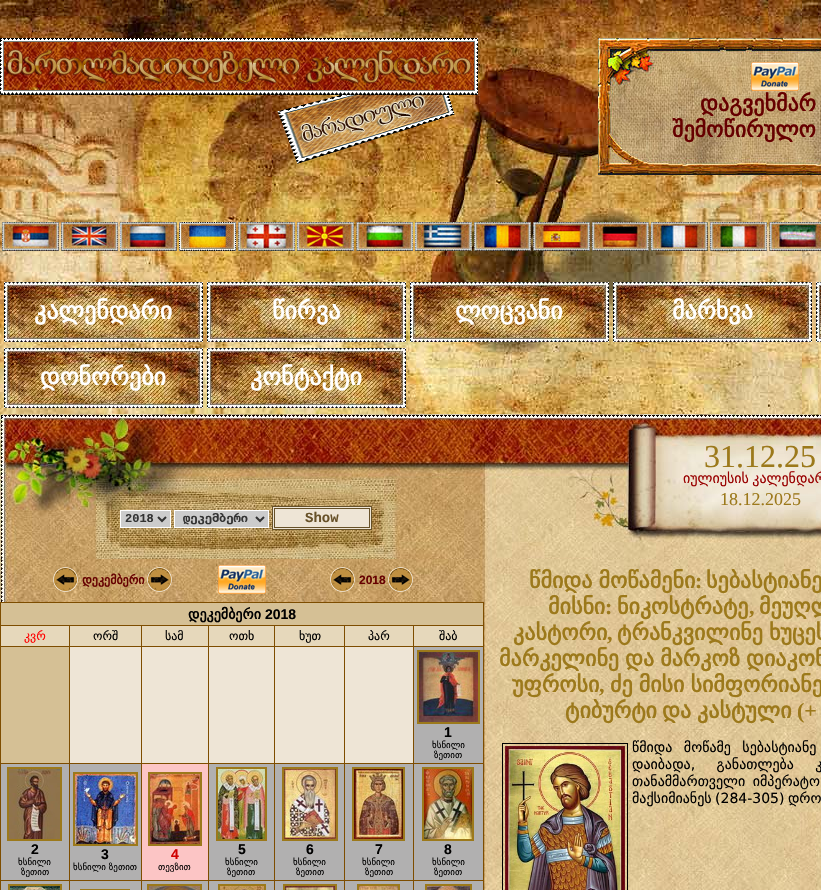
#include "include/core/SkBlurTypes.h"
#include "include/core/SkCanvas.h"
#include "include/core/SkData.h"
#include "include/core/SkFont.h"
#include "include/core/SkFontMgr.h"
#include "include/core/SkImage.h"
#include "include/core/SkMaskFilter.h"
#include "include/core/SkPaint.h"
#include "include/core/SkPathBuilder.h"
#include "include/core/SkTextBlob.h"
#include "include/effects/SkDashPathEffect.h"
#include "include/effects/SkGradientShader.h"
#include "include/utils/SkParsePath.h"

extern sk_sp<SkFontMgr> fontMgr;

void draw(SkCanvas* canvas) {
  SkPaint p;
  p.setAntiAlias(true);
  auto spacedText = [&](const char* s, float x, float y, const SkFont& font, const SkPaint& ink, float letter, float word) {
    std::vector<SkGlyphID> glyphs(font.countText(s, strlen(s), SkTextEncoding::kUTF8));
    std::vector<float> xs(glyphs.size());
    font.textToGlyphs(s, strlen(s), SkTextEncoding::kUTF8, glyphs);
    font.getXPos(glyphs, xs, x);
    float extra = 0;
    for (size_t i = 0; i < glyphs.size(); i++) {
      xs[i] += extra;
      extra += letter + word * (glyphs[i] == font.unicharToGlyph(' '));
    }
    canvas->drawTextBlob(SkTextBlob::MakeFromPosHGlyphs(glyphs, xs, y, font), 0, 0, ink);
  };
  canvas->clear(SK_ColorWHITE);
  canvas->drawImageRect(SkImages::DeferredFromEncodedData(SkData::MakeFromFileName("images/1.png")), SkRect::MakeLTRB(0, 0, 821, 414), SkSamplingOptions());
  canvas->drawImageRect(SkImages::DeferredFromEncodedData(SkData::MakeFromFileName("images/2.png")), SkRect::MakeLTRB(0, 38, 478, 164), SkSamplingOptions());
  canvas->drawImageRect(SkImages::DeferredFromEncodedData(SkData::MakeFromFileName("images/3.png")), SkRect::MakeLTRB(598, 38, 821, 175), SkSamplingOptions());
  canvas->drawImageRect(SkImages::DeferredFromEncodedData(SkData::MakeFromFileName("images/4.png")), SkRect::MakeLTRB(751, 62, 799, 91), SkSamplingOptions());
  canvas->drawImageRect(SkImages::DeferredFromEncodedData(SkData::MakeFromFileName("images/5.png")), SkRect::MakeLTRB(2, 222, 59, 251), SkSamplingOptions());
  canvas->drawImageRect(SkImages::DeferredFromEncodedData(SkData::MakeFromFileName("images/6.png")), SkRect::MakeLTRB(61, 222, 118, 251), SkSamplingOptions());
  canvas->drawImageRect(SkImages::DeferredFromEncodedData(SkData::MakeFromFileName("images/7.png")), SkRect::MakeLTRB(120, 222, 177, 251), SkSamplingOptions());
  canvas->drawImageRect(SkImages::DeferredFromEncodedData(SkData::MakeFromFileName("images/8.png")), SkRect::MakeLTRB(179, 222, 236, 251), SkSamplingOptions());
  canvas->drawImageRect(SkImages::DeferredFromEncodedData(SkData::MakeFromFileName("images/9.png")), SkRect::MakeLTRB(238, 222, 295, 251), SkSamplingOptions());
  canvas->drawImageRect(SkImages::DeferredFromEncodedData(SkData::MakeFromFileName("images/10.png")), SkRect::MakeLTRB(297, 222, 354, 251), SkSamplingOptions());
  canvas->drawImageRect(SkImages::DeferredFromEncodedData(SkData::MakeFromFileName("images/11.png")), SkRect::MakeLTRB(356, 222, 413, 251), SkSamplingOptions());
  canvas->drawImageRect(SkImages::DeferredFromEncodedData(SkData::MakeFromFileName("images/12.png")), SkRect::MakeLTRB(415, 222, 472, 251), SkSamplingOptions());
  canvas->drawImageRect(SkImages::DeferredFromEncodedData(SkData::MakeFromFileName("images/13.png")), SkRect::MakeLTRB(474, 222, 531, 251), SkSamplingOptions());
  canvas->drawImageRect(SkImages::DeferredFromEncodedData(SkData::MakeFromFileName("images/14.png")), SkRect::MakeLTRB(533, 222, 590, 251), SkSamplingOptions());
  canvas->drawImageRect(SkImages::DeferredFromEncodedData(SkData::MakeFromFileName("images/15.png")), SkRect::MakeLTRB(592, 222, 649, 251), SkSamplingOptions());
  canvas->drawImageRect(SkImages::DeferredFromEncodedData(SkData::MakeFromFileName("images/16.png")), SkRect::MakeLTRB(651, 222, 708, 251), SkSamplingOptions());
  canvas->drawImageRect(SkImages::DeferredFromEncodedData(SkData::MakeFromFileName("images/17.png")), SkRect::MakeLTRB(710, 222, 767, 251), SkSamplingOptions());
  canvas->drawImageRect(SkImages::DeferredFromEncodedData(SkData::MakeFromFileName("images/18.png")), SkRect::MakeLTRB(769, 222, 821, 251), SkSamplingOptions());
  canvas->drawImageRect(SkImages::DeferredFromEncodedData(SkData::MakeFromFileName("images/19.png")), SkRect::MakeLTRB(4, 282, 203, 342), SkSamplingOptions());
  canvas->drawImageRect(SkImages::DeferredFromEncodedData(SkData::MakeFromFileName("images/19.png")), SkRect::MakeLTRB(207, 282, 406, 342), SkSamplingOptions());
  canvas->drawImageRect(SkImages::DeferredFromEncodedData(SkData::MakeFromFileName("images/19.png")), SkRect::MakeLTRB(410, 282, 609, 342), SkSamplingOptions());
  canvas->drawImageRect(SkImages::DeferredFromEncodedData(SkData::MakeFromFileName("images/19.png")), SkRect::MakeLTRB(613, 282, 812, 342), SkSamplingOptions());
  canvas->drawImageRect(SkImages::DeferredFromEncodedData(SkData::MakeFromFileName("images/20.png")), SkRect::MakeLTRB(816, 282, 821, 342), SkSamplingOptions());
  canvas->drawImageRect(SkImages::DeferredFromEncodedData(SkData::MakeFromFileName("images/19.png")), SkRect::MakeLTRB(4, 348, 203, 408), SkSamplingOptions());
  canvas->drawImageRect(SkImages::DeferredFromEncodedData(SkData::MakeFromFileName("images/19.png")), SkRect::MakeLTRB(207, 348, 406, 408), SkSamplingOptions());
  canvas->drawImageRect(SkImages::DeferredFromEncodedData(SkData::MakeFromFileName("images/21.png")), SkRect::MakeLTRB(0, 414, 821, 559), SkSamplingOptions());
  p.setColor(SkColorSetRGB(204, 204, 204));
  canvas->drawRect(SkRect::MakeLTRB(120.5f, 510.5f, 170.5f, 527.5f), p);
  p.setStyle(SkPaint::kStroke_Style);
  p.setStrokeWidth(1);
  p.setColor(SK_ColorWHITE);
  canvas->drawRect(SkRect::MakeLTRB(120.5f, 510.5f, 170.5f, 527.5f), p);
  p.setStrokeWidth(2);
  p.setColor(SkColorSetRGB(51, 51, 51));
  canvas->drawPath(SkPathBuilder().moveTo(158, 517).lineTo(162, 521).lineTo(166, 517).detach(), p);
  p.setStyle(SkPaint::kFill_Style);
  p.setColor(SkColorSetRGB(204, 204, 204));
  canvas->drawRect(SkRect::MakeLTRB(174.5f, 510.5f, 268.5f, 527.5f), p);
  p.setStyle(SkPaint::kStroke_Style);
  p.setStrokeWidth(1);
  p.setColor(SK_ColorWHITE);
  canvas->drawRect(SkRect::MakeLTRB(174.5f, 510.5f, 268.5f, 527.5f), p);
  p.setStrokeWidth(2);
  p.setColor(SkColorSetRGB(51, 51, 51));
  canvas->drawPath(SkPathBuilder().moveTo(256, 517).lineTo(260, 521).lineTo(264, 517).detach(), p);
  p.setStyle(SkPaint::kFill_Style);
  p.setColor(SkColorSetRGB(238, 229, 214));
  canvas->drawRect(SkRect::MakeLTRB(272.5f, 506.5f, 371.5f, 529.5f), p);
  p.setStyle(SkPaint::kStroke_Style);
  p.setStrokeWidth(1);
  p.setColor(SkColorSetRGB(103, 81, 40));
  canvas->drawRect(SkRect::MakeLTRB(272.5f, 506.5f, 371.5f, 529.5f), p);
  canvas->drawRect(SkRect::MakeLTRB(274.5f, 508.5f, 369.5f, 527.5f), p);
  canvas->drawImageRect(SkImages::DeferredFromEncodedData(SkData::MakeFromFileName("images/22.png")), SkRect::MakeLTRB(0, 559, 821, 890), SkSamplingOptions());
  canvas->drawImageRect(SkImages::DeferredFromEncodedData(SkData::MakeFromFileName("images/23.png")), SkRect::MakeLTRB(53, 567, 78, 592), SkSamplingOptions());
  canvas->drawImageRect(SkImages::DeferredFromEncodedData(SkData::MakeFromFileName("images/24.png")), SkRect::MakeLTRB(147, 567, 172, 592), SkSamplingOptions());
  canvas->drawImageRect(SkImages::DeferredFromEncodedData(SkData::MakeFromFileName("images/25.png")), SkRect::MakeLTRB(218, 565, 266, 594), SkSamplingOptions());
  canvas->drawImageRect(SkImages::DeferredFromEncodedData(SkData::MakeFromFileName("images/26.png")), SkRect::MakeLTRB(330, 567, 355, 592), SkSamplingOptions());
  canvas->drawImageRect(SkImages::DeferredFromEncodedData(SkData::MakeFromFileName("images/27.png")), SkRect::MakeLTRB(388, 567, 413, 592), SkSamplingOptions());
  p.setColor(SK_ColorBLACK);
  canvas->drawRect(SkRect::MakeLTRB(502.5f, 743.5f, 627.5f, 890.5f), p);
  canvas->drawImageRect(SkImages::DeferredFromEncodedData(SkData::MakeFromFileName("images/28.png")), SkRect::MakeLTRB(505, 746, 625, 890), SkSamplingOptions());
  p.setStyle(SkPaint::kFill_Style);
  p.setColor(SkColorSetRGB(126, 77, 0));
  canvas->drawRect(SkRect::MakeLTRB(0, 602, 484, 890), p);
  p.setColor(SkColorSetRGB(213, 192, 149));
  canvas->drawRect(SkRect::MakeLTRB(1, 603, 483, 625), p);
  p.setColor(SkColorSetRGB(230, 216, 187));
  canvas->drawRect(SkRect::MakeLTRB(1, 626, 69, 646), p);
  canvas->drawRect(SkRect::MakeLTRB(70, 626, 141, 646), p);
  canvas->drawRect(SkRect::MakeLTRB(142, 626, 208, 646), p);
  canvas->drawRect(SkRect::MakeLTRB(209, 626, 274, 646), p);
  canvas->drawRect(SkRect::MakeLTRB(275, 626, 344, 646), p);
  canvas->drawRect(SkRect::MakeLTRB(345, 626, 413, 646), p);
  canvas->drawRect(SkRect::MakeLTRB(414, 626, 483, 646), p);
  p.setColor(SkColorSetRGB(213, 192, 149));
  canvas->drawRect(SkRect::MakeLTRB(1, 647, 69, 763), p);
  p.setColor(SkColorSetRGB(238, 229, 214));
  canvas->drawRect(SkRect::MakeLTRB(70, 647, 141, 763), p);
  canvas->drawRect(SkRect::MakeLTRB(142, 647, 208, 763), p);
  canvas->drawRect(SkRect::MakeLTRB(209, 647, 274, 763), p);
  canvas->drawRect(SkRect::MakeLTRB(275, 647, 344, 763), p);
  canvas->drawRect(SkRect::MakeLTRB(345, 647, 413, 763), p);
  p.setColor(SkColorSetRGB(177, 176, 176));
  canvas->drawRect(SkRect::MakeLTRB(414, 647, 483, 763), p);
  p.setStyle(SkPaint::kStroke_Style);
  p.setStrokeWidth(2);
  p.setColor(SkColorSetRGB(156, 121, 27));
  canvas->drawRect(SkRect::MakeLTRB(418, 651, 479, 723), p);
  canvas->drawImageRect(SkImages::DeferredFromEncodedData(SkData::MakeFromFileName("images/29.png")), SkRect::MakeLTRB(419, 652, 478, 722), SkSamplingOptions());
  p.setStyle(SkPaint::kFill_Style);
  p.setColor(SkColorSetRGB(177, 176, 176));
  canvas->drawRect(SkRect::MakeLTRB(1, 764, 69, 880), p);
  p.setStyle(SkPaint::kStroke_Style);
  p.setColor(SkColorSetRGB(156, 121, 27));
  canvas->drawRect(SkRect::MakeLTRB(8, 768, 61, 840), p);
  canvas->drawImageRect(SkImages::DeferredFromEncodedData(SkData::MakeFromFileName("images/30.png")), SkRect::MakeLTRB(9, 769, 60, 839), SkSamplingOptions());
  p.setStyle(SkPaint::kFill_Style);
  p.setColor(SkColorSetRGB(177, 176, 176));
  canvas->drawRect(SkRect::MakeLTRB(70, 764, 141, 880), p);
  p.setStyle(SkPaint::kStroke_Style);
  p.setColor(SkColorSetRGB(156, 121, 27));
  canvas->drawRect(SkRect::MakeLTRB(74, 773, 137, 845), p);
  canvas->drawImageRect(SkImages::DeferredFromEncodedData(SkData::MakeFromFileName("images/31.png")), SkRect::MakeLTRB(75, 774, 136, 844), SkSamplingOptions());
  p.setStyle(SkPaint::kFill_Style);
  p.setColor(SkColorSetRGB(252, 197, 197));
  canvas->drawRect(SkRect::MakeLTRB(142, 764, 208, 880), p);
  p.setStyle(SkPaint::kStroke_Style);
  p.setColor(SkColorSetRGB(156, 121, 27));
  canvas->drawRect(SkRect::MakeLTRB(149, 773, 201, 845), p);
  canvas->drawImageRect(SkImages::DeferredFromEncodedData(SkData::MakeFromFileName("images/32.png")), SkRect::MakeLTRB(150, 774, 200, 844), SkSamplingOptions());
  p.setStyle(SkPaint::kFill_Style);
  p.setColor(SkColorSetRGB(177, 176, 176));
  canvas->drawRect(SkRect::MakeLTRB(209, 764, 274, 880), p);
  p.setStyle(SkPaint::kStroke_Style);
  p.setColor(SkColorSetRGB(156, 121, 27));
  canvas->drawRect(SkRect::MakeLTRB(217, 768, 266, 840), p);
  canvas->drawImageRect(SkImages::DeferredFromEncodedData(SkData::MakeFromFileName("images/33.png")), SkRect::MakeLTRB(218, 769, 265, 839), SkSamplingOptions());
  p.setStyle(SkPaint::kFill_Style);
  p.setColor(SkColorSetRGB(177, 176, 176));
  canvas->drawRect(SkRect::MakeLTRB(275, 764, 344, 880), p);
  p.setStyle(SkPaint::kStroke_Style);
  p.setColor(SkColorSetRGB(156, 121, 27));
  canvas->drawRect(SkRect::MakeLTRB(283, 768, 337, 840), p);
  canvas->drawImageRect(SkImages::DeferredFromEncodedData(SkData::MakeFromFileName("images/34.png")), SkRect::MakeLTRB(284, 769, 336, 839), SkSamplingOptions());
  p.setStyle(SkPaint::kFill_Style);
  p.setColor(SkColorSetRGB(177, 176, 176));
  canvas->drawRect(SkRect::MakeLTRB(345, 764, 413, 880), p);
  p.setStyle(SkPaint::kStroke_Style);
  p.setColor(SkColorSetRGB(156, 121, 27));
  canvas->drawRect(SkRect::MakeLTRB(353, 768, 404, 840), p);
  canvas->drawImageRect(SkImages::DeferredFromEncodedData(SkData::MakeFromFileName("images/35.png")), SkRect::MakeLTRB(354, 769, 403, 839), SkSamplingOptions());
  p.setStyle(SkPaint::kFill_Style);
  p.setColor(SkColorSetRGB(177, 176, 176));
  canvas->drawRect(SkRect::MakeLTRB(414, 764, 483, 880), p);
  p.setStyle(SkPaint::kStroke_Style);
  p.setColor(SkColorSetRGB(156, 121, 27));
  canvas->drawRect(SkRect::MakeLTRB(423, 768, 473, 840), p);
  canvas->drawImageRect(SkImages::DeferredFromEncodedData(SkData::MakeFromFileName("images/36.png")), SkRect::MakeLTRB(424, 769, 472, 839), SkSamplingOptions());
  p.setStyle(SkPaint::kFill_Style);
  p.setColor(SkColorSetRGB(177, 176, 176));
  canvas->drawRect(SkRect::MakeLTRB(1, 881, 69, 890), p);
  p.setStyle(SkPaint::kStroke_Style);
  p.setColor(SkColorSetRGB(156, 121, 27));
  canvas->drawRect(SkRect::MakeLTRB(9, 885, 61, 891), p);
  canvas->drawImageRect(SkImages::DeferredFromEncodedData(SkData::MakeFromFileName("images/37.png")), SkRect::MakeLTRB(10, 886, 60, 890), SkSamplingOptions());
  p.setStyle(SkPaint::kFill_Style);
  p.setColor(SkColorSetRGB(177, 176, 176));
  canvas->drawRect(SkRect::MakeLTRB(70, 881, 141, 890), p);
  p.setStyle(SkPaint::kStroke_Style);
  p.setColor(SkColorSetRGB(156, 121, 27));
  canvas->drawRect(SkRect::MakeLTRB(81, 890, 129, 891), p);
  p.setStyle(SkPaint::kFill_Style);
  p.setColor(SkColorSetRGB(177, 176, 176));
  canvas->drawRect(SkRect::MakeLTRB(142, 881, 208, 890), p);
  p.setStyle(SkPaint::kStroke_Style);
  p.setColor(SkColorSetRGB(156, 121, 27));
  canvas->drawRect(SkRect::MakeLTRB(148, 885, 201, 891), p);
  canvas->drawImageRect(SkImages::DeferredFromEncodedData(SkData::MakeFromFileName("images/38.png")), SkRect::MakeLTRB(149, 886, 200, 890), SkSamplingOptions());
  p.setStyle(SkPaint::kFill_Style);
  p.setColor(SkColorSetRGB(177, 176, 176));
  canvas->drawRect(SkRect::MakeLTRB(209, 881, 274, 890), p);
  p.setStyle(SkPaint::kStroke_Style);
  p.setColor(SkColorSetRGB(156, 121, 27));
  canvas->drawRect(SkRect::MakeLTRB(219, 885, 265, 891), p);
  canvas->drawImageRect(SkImages::DeferredFromEncodedData(SkData::MakeFromFileName("images/39.png")), SkRect::MakeLTRB(220, 886, 264, 890), SkSamplingOptions());
  p.setStyle(SkPaint::kFill_Style);
  p.setColor(SkColorSetRGB(177, 176, 176));
  canvas->drawRect(SkRect::MakeLTRB(275, 881, 344, 890), p);
  p.setStyle(SkPaint::kStroke_Style);
  p.setColor(SkColorSetRGB(156, 121, 27));
  canvas->drawRect(SkRect::MakeLTRB(284, 885, 336, 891), p);
  canvas->drawImageRect(SkImages::DeferredFromEncodedData(SkData::MakeFromFileName("images/40.png")), SkRect::MakeLTRB(285, 886, 335, 890), SkSamplingOptions());
  p.setStyle(SkPaint::kFill_Style);
  p.setColor(SkColorSetRGB(177, 176, 176));
  canvas->drawRect(SkRect::MakeLTRB(345, 881, 413, 890), p);
  p.setStyle(SkPaint::kStroke_Style);
  p.setColor(SkColorSetRGB(156, 121, 27));
  canvas->drawRect(SkRect::MakeLTRB(358, 885, 399, 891), p);
  canvas->drawImageRect(SkImages::DeferredFromEncodedData(SkData::MakeFromFileName("images/41.png")), SkRect::MakeLTRB(359, 886, 398, 890), SkSamplingOptions());
  p.setStyle(SkPaint::kFill_Style);
  p.setColor(SkColorSetRGB(177, 176, 176));
  canvas->drawRect(SkRect::MakeLTRB(414, 881, 483, 890), p);
  p.setStyle(SkPaint::kStroke_Style);
  p.setColor(SkColorSetRGB(156, 121, 27));
  canvas->drawRect(SkRect::MakeLTRB(426, 885, 471, 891), p);
  canvas->drawImageRect(SkImages::DeferredFromEncodedData(SkData::MakeFromFileName("images/42.png")), SkRect::MakeLTRB(427, 886, 470, 890), SkSamplingOptions());
  SkFont font1(fontMgr->matchFamilyStyle("DejaVu Sans", SkFontStyle::Bold()), 22);
  font1.setSubpixel(true);
  p.setStyle(SkPaint::kFill_Style);
  p.setColor(SkColorSetRGB(102, 0, 0));
  canvas->drawString("დაგვეხმარ", 700, 111, font1, p);
  canvas->drawString("შემოწირულო", 672, 137, font1, p);
  SkFont font2(fontMgr->matchFamilyStyle("DejaVu Sans", SkFontStyle::Bold()), 24);
  font2.setSubpixel(true);
  p.setColor(SK_ColorWHITE);
  canvas->drawString("კალენდარი", 34, 319, font2, p);
  canvas->drawString("წირვა", 272, 319, font2, p);
  canvas->drawString("ლოცვანი", 455, 319, font2, p);
  canvas->drawString("მარხვა", 672, 319, font2, p);
  canvas->drawString("დონორები", 40, 385, font2, p);
  canvas->drawString("კონტაქტი", 250, 385, font2, p);
  SkFont font3(fontMgr->matchFamilyStyle("Liberation Serif", SkFontStyle::Normal()), 32);
  font3.setSubpixel(true);
  p.setColor(SkColorSetRGB(156, 121, 27));
  canvas->drawString("31.12.25", 704, 467, font3, p);
  SkFont font4(fontMgr->matchFamilyStyle("DejaVu Sans", SkFontStyle::Normal()), 14);
  font4.setSubpixel(true);
  p.setColor(SkColorSetRGB(153, 0, 0));
  spacedText("იულიუსის კალენდარ", 683, 483, font4, p, 0, -1);
  SkFont font5(fontMgr->matchFamilyStyle("Liberation Serif", SkFontStyle::Normal()), 18);
  font5.setSubpixel(true);
  p.setColor(SkColorSetRGB(156, 121, 27));
  canvas->drawString("18.12.2025", 720, 505, font5, p);
  SkFont font6(fontMgr->matchFamilyStyle("Liberation Mono", SkFontStyle::Bold()), 12);
  font6.setSubpixel(true);
  p.setColor(SkColorSetRGB(51, 51, 51));
  canvas->drawString("2018", 125, 522, font6, p);
  SkFont font7(fontMgr->matchFamilyStyle("DejaVu Sans Mono", SkFontStyle::Bold()), 12);
  font7.setSubpixel(true);
  canvas->drawString("დეკემბერი", 183, 522, font7, p);
  SkFont font8(fontMgr->matchFamilyStyle("Liberation Mono", SkFontStyle::Bold()), 14);
  font8.setSubpixel(true);
  p.setColor(SkColorSetRGB(103, 81, 40));
  canvas->drawString("Show", 305, 522, font8, p);
  SkFont font9(fontMgr->matchFamilyStyle("DejaVu Sans", SkFontStyle::Bold()), 12);
  font9.setSubpixel(true);
  p.setColor(SkColorSetRGB(102, 0, 0));
  canvas->drawString("დეკემბერი", 82, 584, font9, p);
  SkFont font10(fontMgr->matchFamilyStyle("Liberation Sans", SkFontStyle::Bold()), 12);
  font10.setSubpixel(true);
  canvas->drawString("2018", 359, 584, font10, p);
  p.setColor(SkColorSetRGB(156, 121, 27));
  spacedText("წმიდა მოწამენი", 529, 588, font1, p, 0, -1);
  SkFont font11(fontMgr->matchFamilyStyle("Liberation Serif", SkFontStyle::Bold()), 22);
  font11.setSubpixel(true);
  canvas->drawString(":", 695, 588, font11, p);
  spacedText("სებასტიანე", 706, 588, font1, p, 0, -1);
  canvas->drawString("მისნი", 548, 614, font1, p);
  canvas->drawString(":", 605, 614, font11, p);
  canvas->drawString("ნიკოსტრატე", 617, 614, font1, p);
  canvas->drawString(",", 749, 614, font11, p);
  spacedText("მეუღლ", 759, 614, font1, p, 0, -1);
  canvas->drawString("კასტორი", 513, 640, font1, p);
  canvas->drawString(",", 607, 640, font11, p);
  spacedText("ტრანკვილინე ხუცეს", 617, 640, font1, p, 0, -1);
  spacedText("მარკელინე და მარკოზ დიაკონ", 499, 666, font1, p, 0, -1);
  canvas->drawString("უფროსი", 512, 692, font1, p);
  canvas->drawString(",", 599, 692, font11, p);
  spacedText("ძე მისი სიმფორიანე", 610, 692, font1, p, 0, -1);
  canvas->drawString("ტიბურტი", 565, 718, font1, p);
  canvas->drawString("და", 662, 718, font1, p);
  canvas->drawString("კასტული", 697, 718, font1, p);
  canvas->drawString("(+", 797, 718, font11, p);
  p.setColor(SK_ColorBLACK);
  spacedText("წმიდა მოწამე სებასტიანე", 632, 752, font4, p, 0, 7);
  spacedText("დაიბადა, განათლება კ", 632, 769, font4, p, 0, 17);
  spacedText("თანამმართველი იმპერატო", 632, 786, font4, p, 0, 3);
  spacedText("მაქსიმიანეს (284-305) დრო", 632, 803, font4, p, 0, -1);
  SkFont font12(fontMgr->matchFamilyStyle("DejaVu Sans", SkFontStyle::Bold()), 14);
  font12.setSubpixel(true);
  canvas->drawString("დეკემბერი", 188, 619, font12, p);
  SkFont font13(fontMgr->matchFamilyStyle("Liberation Sans", SkFontStyle::Bold()), 14);
  font13.setSubpixel(true);
  canvas->drawString("2018", 265, 619, font13, p);
  SkFont font14(fontMgr->matchFamilyStyle("DejaVu Sans", SkFontStyle::Normal()), 12);
  font14.setSubpixel(true);
  p.setColor(SkColorSetRGB(255, 0, 0));
  canvas->drawString("კვრ", 24, 640, font14, p);
  p.setColor(SK_ColorBLACK);
  canvas->drawString("ორშ", 93, 640, font14, p);
  canvas->drawString("სამ", 165, 640, font14, p);
  canvas->drawString("ოთხ", 229, 640, font14, p);
  canvas->drawString("ხუთ", 299, 640, font14, p);
  canvas->drawString("პარ", 368, 640, font14, p);
  canvas->drawString("შაბ", 439, 640, font14, p);
  canvas->drawString("1", 444, 737, font13, p);
  SkFont font15(fontMgr->matchFamilyStyle("DejaVu Sans", SkFontStyle::Normal()), 9);
  font15.setSubpixel(true);
  canvas->drawString("ხსნილი", 432, 748, font15, p);
  canvas->drawString("ზეთით", 434, 758, font15, p);
  canvas->drawString("2", 31, 854, font13, p);
  canvas->drawString("ხსნილი", 18, 865, font15, p);
  canvas->drawString("ზეთით", 21, 875, font15, p);
  canvas->drawString("3", 101, 859, font13, p);
  canvas->drawString("ხსნილი ზეთით", 73, 870, font15, p);
  p.setColor(SkColorSetRGB(208, 0, 0));
  canvas->drawString("4", 171, 859, font13, p);
  p.setColor(SK_ColorBLACK);
  canvas->drawString("თევზით", 158, 870, font15, p);
  canvas->drawString("5", 238, 854, font13, p);
  canvas->drawString("ხსნილი", 225, 865, font15, p);
  canvas->drawString("ზეთით", 227, 875, font15, p);
  canvas->drawString("6", 306, 854, font13, p);
  canvas->drawString("ხსნილი", 293, 865, font15, p);
  canvas->drawString("ზეთით", 296, 875, font15, p);
  canvas->drawString("7", 375, 854, font13, p);
  canvas->drawString("ხსნილი", 362, 865, font15, p);
  canvas->drawString("ზეთით", 365, 875, font15, p);
  canvas->drawString("8", 444, 854, font13, p);
  canvas->drawString("ხსნილი", 432, 865, font15, p);
  canvas->drawString("ზეთით", 434, 875, font15, p);
}
